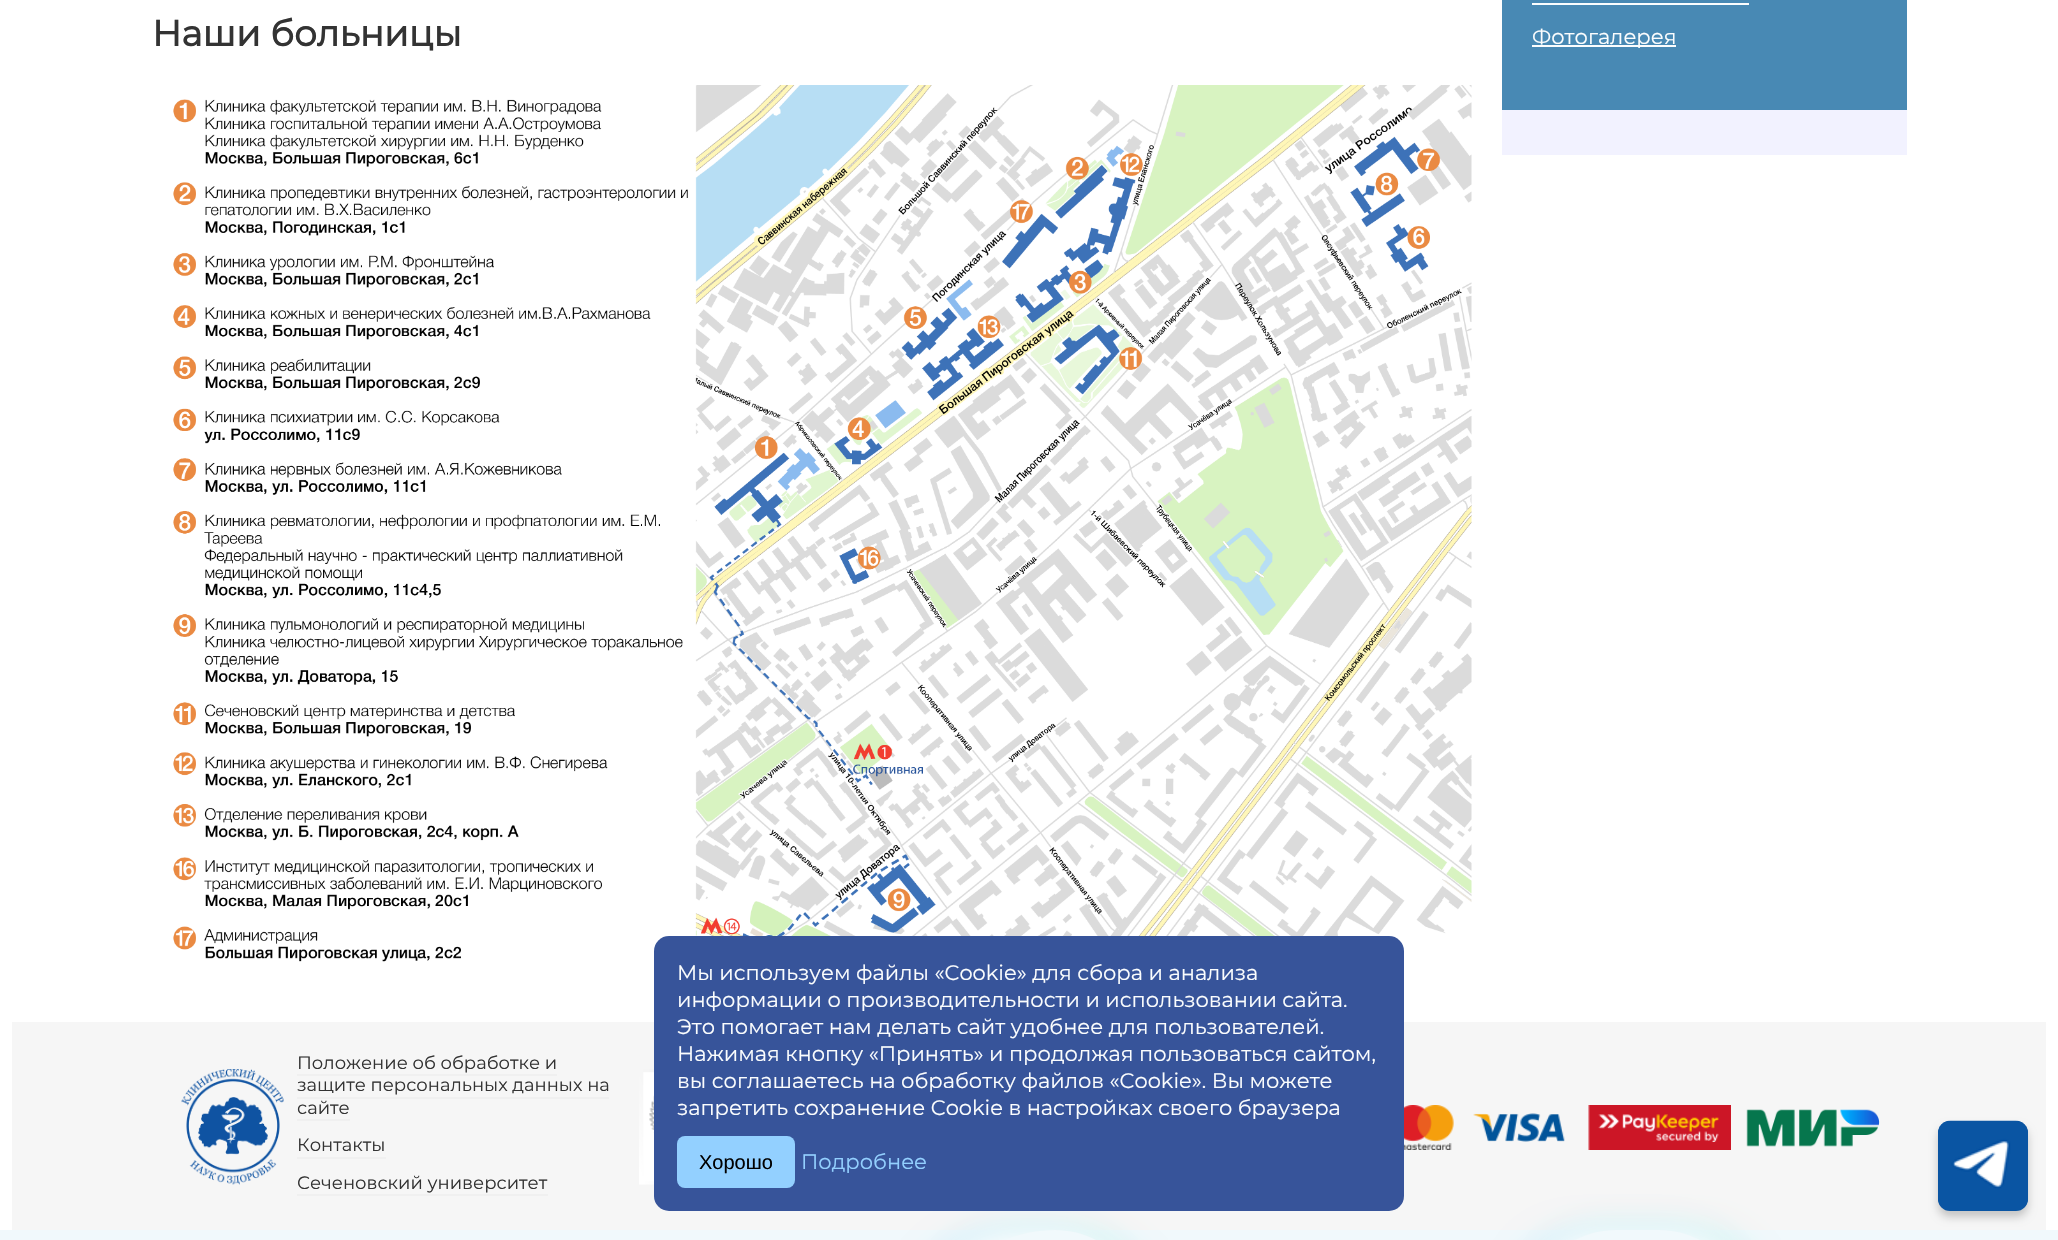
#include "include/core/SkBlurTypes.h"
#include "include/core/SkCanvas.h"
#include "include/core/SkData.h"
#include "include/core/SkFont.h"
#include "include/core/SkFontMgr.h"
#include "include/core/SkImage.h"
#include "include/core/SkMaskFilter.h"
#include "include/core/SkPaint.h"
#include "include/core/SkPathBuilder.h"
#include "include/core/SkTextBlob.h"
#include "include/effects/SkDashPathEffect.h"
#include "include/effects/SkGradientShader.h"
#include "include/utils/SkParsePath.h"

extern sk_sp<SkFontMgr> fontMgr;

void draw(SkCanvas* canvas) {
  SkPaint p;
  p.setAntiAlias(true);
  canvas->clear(SK_ColorWHITE);
  canvas->drawImageRect(SkImages::DeferredFromEncodedData(SkData::MakeFromFileName("images/1.png")), SkRect::MakeLTRB(173, 85, 1472, 978), SkSamplingOptions());
  p.setColor(SkColorSetRGB(72, 137, 180));
  canvas->drawRect(SkRect::MakeLTRB(1502, 0, 1907, 110), p);
  p.setColor(SkColorSetRGB(251, 253, 254));
  canvas->drawRect(SkRect::MakeLTRB(1532, 3, 1749, 5), p);
  canvas->drawRect(SkRect::MakeLTRB(1532, 45, 1676, 47), p);
  p.setColor(SkColorSetRGB(242, 242, 255));
  canvas->drawRect(SkRect::MakeLTRB(1502, 110, 1907, 155), p);
  p.setColor(SkColorSetRGB(246, 246, 246));
  canvas->drawRect(SkRect::MakeLTRB(12, 1022, 2046, 1230), p);
  canvas->drawImageRect(SkImages::DeferredFromEncodedData(SkData::MakeFromFileName("images/2.png")), SkRect::MakeLTRB(181, 1069, 284, 1185), SkSamplingOptions());
  p.setColor(SkColorSetRGB(240, 240, 240));
  canvas->drawRect(SkRect::MakeLTRB(297, 1074, 557, 1076), p);
  canvas->drawRect(SkRect::MakeLTRB(297, 1097, 609, 1099), p);
  canvas->drawRect(SkRect::MakeLTRB(297, 1119, 350, 1121), p);
  canvas->drawRect(SkRect::MakeLTRB(297, 1157, 386, 1159), p);
  canvas->drawRect(SkRect::MakeLTRB(297, 1194, 548, 1196), p);
  canvas->drawImageRect(SkImages::DeferredFromEncodedData(SkData::MakeFromFileName("images/3.png")), SkRect::MakeLTRB(639, 1069, 654, 1185), SkSamplingOptions());
  canvas->drawImageRect(SkImages::DeferredFromEncodedData(SkData::MakeFromFileName("images/4.png")), SkRect::MakeLTRB(1404, 1105, 1731, 1150), SkSamplingOptions());
  canvas->drawImageRect(SkImages::DeferredFromEncodedData(SkData::MakeFromFileName("images/5.png")), SkRect::MakeLTRB(1746, 1109, 1880, 1147), SkSamplingOptions());
  p.setColor(SkColorSetRGB(241, 249, 252));
  canvas->drawRect(SkRect::MakeLTRB(0, 1230, 2058, 1240), p);
  p.setColor(SkColorSetRGB(197, 242, 237));
  p.setMaskFilter(SkMaskFilter::MakeBlur(kNormal_SkBlurStyle, 15));
  canvas->drawRoundRect(SkRect::MakeLTRB(939, 1230, 1160, 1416), 131, 131, p);
  p.setMaskFilter(nullptr);
  p.setColor(SkColorSetRGB(200, 235, 248));
  p.setMaskFilter(SkMaskFilter::MakeBlur(kNormal_SkBlurStyle, 15));
  canvas->drawRoundRect(SkRect::MakeLTRB(909, 1230, 1130, 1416), 131, 131, p);
  p.setMaskFilter(nullptr);
  p.setColor(SK_ColorWHITE);
  p.setMaskFilter(SkMaskFilter::MakeBlur(kNormal_SkBlurStyle, 15));
  canvas->drawRoundRect(SkRect::MakeLTRB(924, 1230, 1145, 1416), 131, 131, p);
  p.setMaskFilter(nullptr);
  p.setColor(SkColorSetRGB(55, 84, 154));
  canvas->drawRoundRect(SkRect::MakeLTRB(654, 936, 1404, 1211), 15, 15, p);
  p.setColor(SkColorSetRGB(147, 208, 255));
  canvas->drawRoundRect(SkRect::MakeLTRB(677, 1136, 795, 1188), 8, 8, p);
  p.setColor(SkColorSetARGB(51, 0, 0, 0));
  p.setMaskFilter(SkMaskFilter::MakeBlur(kNormal_SkBlurStyle, 4.5f));
  canvas->drawRoundRect(SkRect::MakeLTRB(1938, 1127, 2028, 1217), 12, 12, p);
  p.setMaskFilter(nullptr);
  p.setColor(SkColorSetRGB(10, 85, 163));
  canvas->drawRoundRect(SkRect::MakeLTRB(1938, 1121, 2028, 1211), 12, 12, p);
  canvas->drawImageRect(SkImages::DeferredFromEncodedData(SkData::MakeFromFileName("images/6.png")), SkRect::MakeLTRB(1938, 1120, 2028, 1206), SkSamplingOptions());
  p.setColor(SkColorSetRGB(241, 249, 252));
  canvas->drawPath(SkPathBuilder().moveTo(1055, 1230).cubicTo(1104.5f, 1230, 1145, 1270.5f, 1145, 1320).lineTo(1145, 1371).lineTo(924, 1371).lineTo(924, 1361).cubicTo(924, 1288.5f, 982.5f, 1230, 1055, 1230).close().detach(), p);
  p.setColor(SkColorSetRGB(197, 242, 237));
  p.setMaskFilter(SkMaskFilter::MakeBlur(kNormal_SkBlurStyle, 15));
  canvas->drawRoundRect(SkRect::MakeLTRB(1542, 1230, 1763, 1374), 89, 89, p);
  p.setMaskFilter(nullptr);
  p.setColor(SkColorSetRGB(200, 235, 248));
  p.setMaskFilter(SkMaskFilter::MakeBlur(kNormal_SkBlurStyle, 15));
  canvas->drawRoundRect(SkRect::MakeLTRB(1512, 1230, 1733, 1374), 89, 89, p);
  p.setMaskFilter(nullptr);
  p.setColor(SK_ColorWHITE);
  p.setMaskFilter(SkMaskFilter::MakeBlur(kNormal_SkBlurStyle, 15));
  canvas->drawRoundRect(SkRect::MakeLTRB(1527, 1230, 1748, 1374), 89, 89, p);
  p.setMaskFilter(nullptr);
  p.setColor(SkColorSetRGB(241, 249, 252));
  canvas->drawPath(SkPathBuilder().moveTo(1616, 1230).lineTo(1659, 1230).cubicTo(1708, 1230, 1748, 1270, 1748, 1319).lineTo(1748, 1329).lineTo(1527, 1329).lineTo(1527, 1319).cubicTo(1527, 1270, 1567, 1230, 1616, 1230).close().detach(), p);
  SkFont font1(fontMgr->matchFamilyStyle("Montserrat", SkFontStyle::Bold()), 36);
  font1.setSubpixel(true);
  p.setColor(SkColorSetRGB(51, 51, 51));
  canvas->drawString("Наши больницы", 152, 46, font1, p);
  SkFont font2(fontMgr->matchFamilyStyle("Montserrat", SkFontStyle(100, SkFontStyle::kNormal_Width, SkFontStyle::kUpright_Slant)), 21);
  font2.setSubpixel(true);
  p.setColor(SkColorSetRGB(251, 253, 254));
  canvas->drawString("Фотогалерея", 1532, 44, font2, p);
  SkFont font3(fontMgr->matchFamilyStyle("Montserrat", SkFontStyle(100, SkFontStyle::kNormal_Width, SkFontStyle::kUpright_Slant)), 18);
  font3.setSubpixel(true);
  p.setColor(SkColorSetRGB(51, 51, 51));
  canvas->drawString("Положение об обработке и", 297, 1069, font3, p);
  canvas->drawString("защите персональных данных на", 297, 1091, font3, p);
  canvas->drawString("сайте", 297, 1114, font3, p);
  canvas->drawString("Контакты", 297, 1151, font3, p);
  canvas->drawString("Сеченовский университет", 297, 1189, font3, p);
  p.setColor(SkColorSetRGB(251, 253, 254));
  canvas->drawString("Мы используем файлы «Cookie» для сбора и анализа", 677, 980, font2, p);
  canvas->drawString("информации о производительности и использовании сайта.", 677, 1007, font2, p);
  canvas->drawString("Это помогает нам делать сайт удобнее для пользователей.", 677, 1034, font2, p);
  canvas->drawString("Нажимая кнопку «Принять» и продолжая пользоваться сайтом,", 677, 1061, font2, p);
  canvas->drawString("вы соглашаетесь на обработку файлов «Cookie». Вы можете", 677, 1088, font2, p);
  canvas->drawString("запретить сохранение Cookie в настройках своего браузера", 677, 1115, font2, p);
  SkFont font4(fontMgr->matchFamilyStyle("Liberation Sans", SkFontStyle::Normal()), 20);
  font4.setSubpixel(true);
  p.setColor(SK_ColorBLACK);
  canvas->drawString("Хорошо", 699, 1169, font4, p);
  p.setColor(SkColorSetRGB(147, 208, 255));
  canvas->drawString("Подробнее", 801, 1169, font2, p);
}
